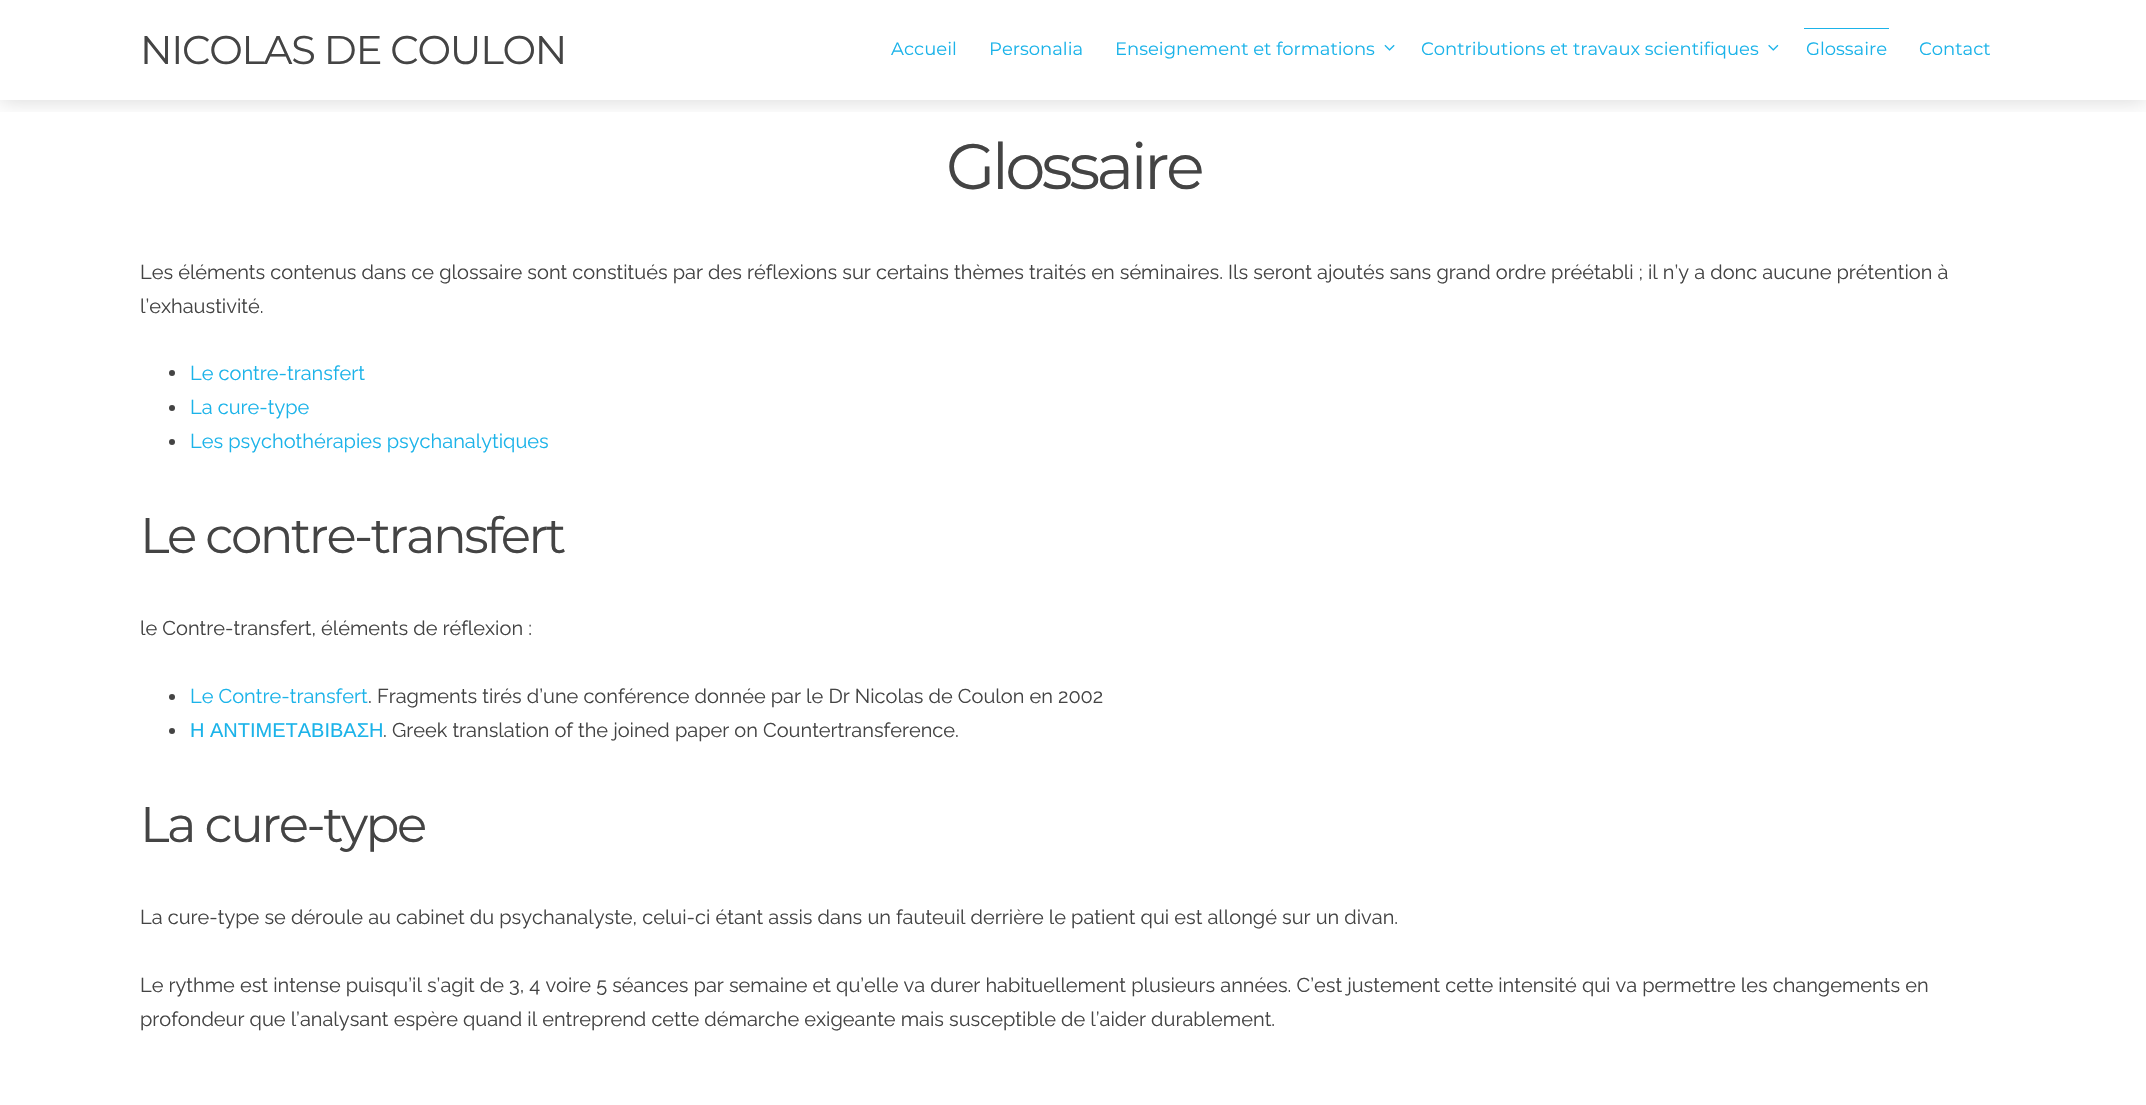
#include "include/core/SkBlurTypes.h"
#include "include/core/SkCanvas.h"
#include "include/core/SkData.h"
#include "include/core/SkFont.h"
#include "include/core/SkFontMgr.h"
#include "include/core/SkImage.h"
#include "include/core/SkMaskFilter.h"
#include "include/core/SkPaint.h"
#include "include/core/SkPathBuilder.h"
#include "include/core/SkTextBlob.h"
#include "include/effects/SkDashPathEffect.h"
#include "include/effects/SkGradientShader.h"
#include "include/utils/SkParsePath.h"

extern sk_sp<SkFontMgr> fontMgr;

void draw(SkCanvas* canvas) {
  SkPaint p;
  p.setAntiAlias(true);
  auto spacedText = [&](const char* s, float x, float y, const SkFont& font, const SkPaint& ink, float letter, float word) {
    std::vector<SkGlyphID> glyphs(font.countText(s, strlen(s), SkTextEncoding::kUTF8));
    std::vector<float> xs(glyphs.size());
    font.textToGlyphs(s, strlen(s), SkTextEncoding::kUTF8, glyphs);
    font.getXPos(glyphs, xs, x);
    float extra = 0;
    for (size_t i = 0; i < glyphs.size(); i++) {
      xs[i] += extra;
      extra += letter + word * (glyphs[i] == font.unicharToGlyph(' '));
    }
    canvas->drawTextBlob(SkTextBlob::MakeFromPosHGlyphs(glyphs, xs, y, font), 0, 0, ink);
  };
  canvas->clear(SK_ColorWHITE);
  canvas->save();
  canvas->clipRect(SkRect::MakeLTRB(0, 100, 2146, 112));
  p.setColor(SkColorSetARGB(38, 0, 0, 0));
  p.setMaskFilter(SkMaskFilter::MakeBlur(kNormal_SkBlurStyle, 10));
  canvas->drawRect(SkRect::MakeLTRB(0, 1, 2146, 101), p);
  p.setMaskFilter(nullptr);
  canvas->restore();
  canvas->drawImageRect(SkImages::DeferredFromEncodedData(SkData::MakeFromFileName("images/1.png")), SkRect::MakeLTRB(1384, 44, 1395, 51), SkSamplingOptions());
  canvas->drawImageRect(SkImages::DeferredFromEncodedData(SkData::MakeFromFileName("images/2.png")), SkRect::MakeLTRB(1768, 44, 1779, 51), SkSamplingOptions());
  p.setColor(SkColorSetRGB(27, 179, 233));
  canvas->drawRect(SkRect::MakeLTRB(1804, 28, 1889, 29), p);
  p.setColor(SkColorSetRGB(68, 68, 68));
  canvas->drawCircle(172, 373, 3, p);
  canvas->drawCircle(172, 408, 3, p);
  canvas->drawCircle(172, 442, 3, p);
  canvas->drawCircle(172, 697, 3, p);
  canvas->drawCircle(172, 731, 3, p);
  SkFont font1(fontMgr->matchFamilyStyle("Montserrat", SkFontStyle(100, SkFontStyle::kNormal_Width, SkFontStyle::kUpright_Slant)), 40);
  font1.setSubpixel(true);
  spacedText("NICOLAS DE COULON", 140, 64, font1, p, -1.25f, 0);
  SkFont font2(fontMgr->matchFamilyStyle("Montserrat", SkFontStyle(100, SkFontStyle::kNormal_Width, SkFontStyle::kUpright_Slant)), 18);
  font2.setSubpixel(true);
  p.setColor(SkColorSetRGB(27, 179, 233));
  canvas->drawString("Accueil", 891, 55, font2, p);
  canvas->drawString("Personalia", 989, 55, font2, p);
  canvas->drawString("Enseignement et formations", 1115, 55, font2, p);
  canvas->drawString("Contributions et travaux scientifiques", 1421, 55, font2, p);
  canvas->drawString("Glossaire", 1806, 55, font2, p);
  canvas->drawString("Contact", 1919, 55, font2, p);
  SkFont font3(fontMgr->matchFamilyStyle("Montserrat", SkFontStyle(100, SkFontStyle::kNormal_Width, SkFontStyle::kUpright_Slant)), 64);
  font3.setSubpixel(true);
  p.setColor(SkColorSetRGB(68, 68, 68));
  spacedText("Glossaire", 946, 189, font3, p, -3.75f, 0);
  SkFont font4(fontMgr->matchFamilyStyle("Raleway", SkFontStyle::Normal()), 20);
  font4.setSubpixel(true);
  canvas->drawString("Les éléments contenus dans ce glossaire sont constitués par des réflexions sur certains thèmes traités en séminaires. Ils seront ajoutés sans grand ordre préétabli ; il n’y a donc aucune prétention à", 140, 279, font4, p);
  canvas->drawString("l’exhaustivité.", 140, 313, font4, p);
  p.setColor(SkColorSetRGB(27, 179, 233));
  canvas->drawString("Le contre-transfert", 190, 380, font4, p);
  canvas->drawString("La cure-type", 190, 414, font4, p);
  canvas->drawString("Les psychothérapies psychanalytiques", 190, 448, font4, p);
  SkFont font5(fontMgr->matchFamilyStyle("Montserrat", SkFontStyle(100, SkFontStyle::kNormal_Width, SkFontStyle::kUpright_Slant)), 50);
  font5.setSubpixel(true);
  p.setColor(SkColorSetRGB(68, 68, 68));
  spacedText("Le contre-transfert", 140, 553, font5, p, -2.5f, 0);
  canvas->drawString("le Contre-transfert, éléments de réflexion :", 140, 635, font4, p);
  p.setColor(SkColorSetRGB(27, 179, 233));
  canvas->drawString("Le Contre-transfert", 190, 703, font4, p);
  p.setColor(SkColorSetRGB(68, 68, 68));
  canvas->drawString(". Fragments tirés d’une conférence donnée par le Dr Nicolas de Coulon en 2002", 368, 703, font4, p);
  SkFont font6(fontMgr->matchFamilyStyle("Liberation Sans", SkFontStyle::Normal()), 20);
  font6.setSubpixel(true);
  p.setColor(SkColorSetRGB(27, 179, 233));
  canvas->drawString("Η ΑΝΤΙΜΕΤΑΒΙΒΑΣΗ", 190, 737, font6, p);
  p.setColor(SkColorSetRGB(68, 68, 68));
  canvas->drawString(". Greek translation of the joined paper on Countertransference.", 383, 737, font4, p);
  spacedText("La cure-type", 140, 842, font5, p, -2.5f, 0);
  canvas->drawString("La cure-type se déroule au cabinet du psychanalyste, celui-ci étant assis dans un fauteuil derrière le patient qui est allongé sur un divan.", 140, 924, font4, p);
  canvas->drawString("Le rythme est intense puisqu’il s’agit de 3, 4 voire 5 séances par semaine et qu’elle va durer habituellement plusieurs années. C’est justement cette intensité qui va permettre les changements en", 140, 992, font4, p);
  canvas->drawString("profondeur que l’analysant espère quand il entreprend cette démarche exigeante mais susceptible de l’aider durablement.", 140, 1026, font4, p);
}
